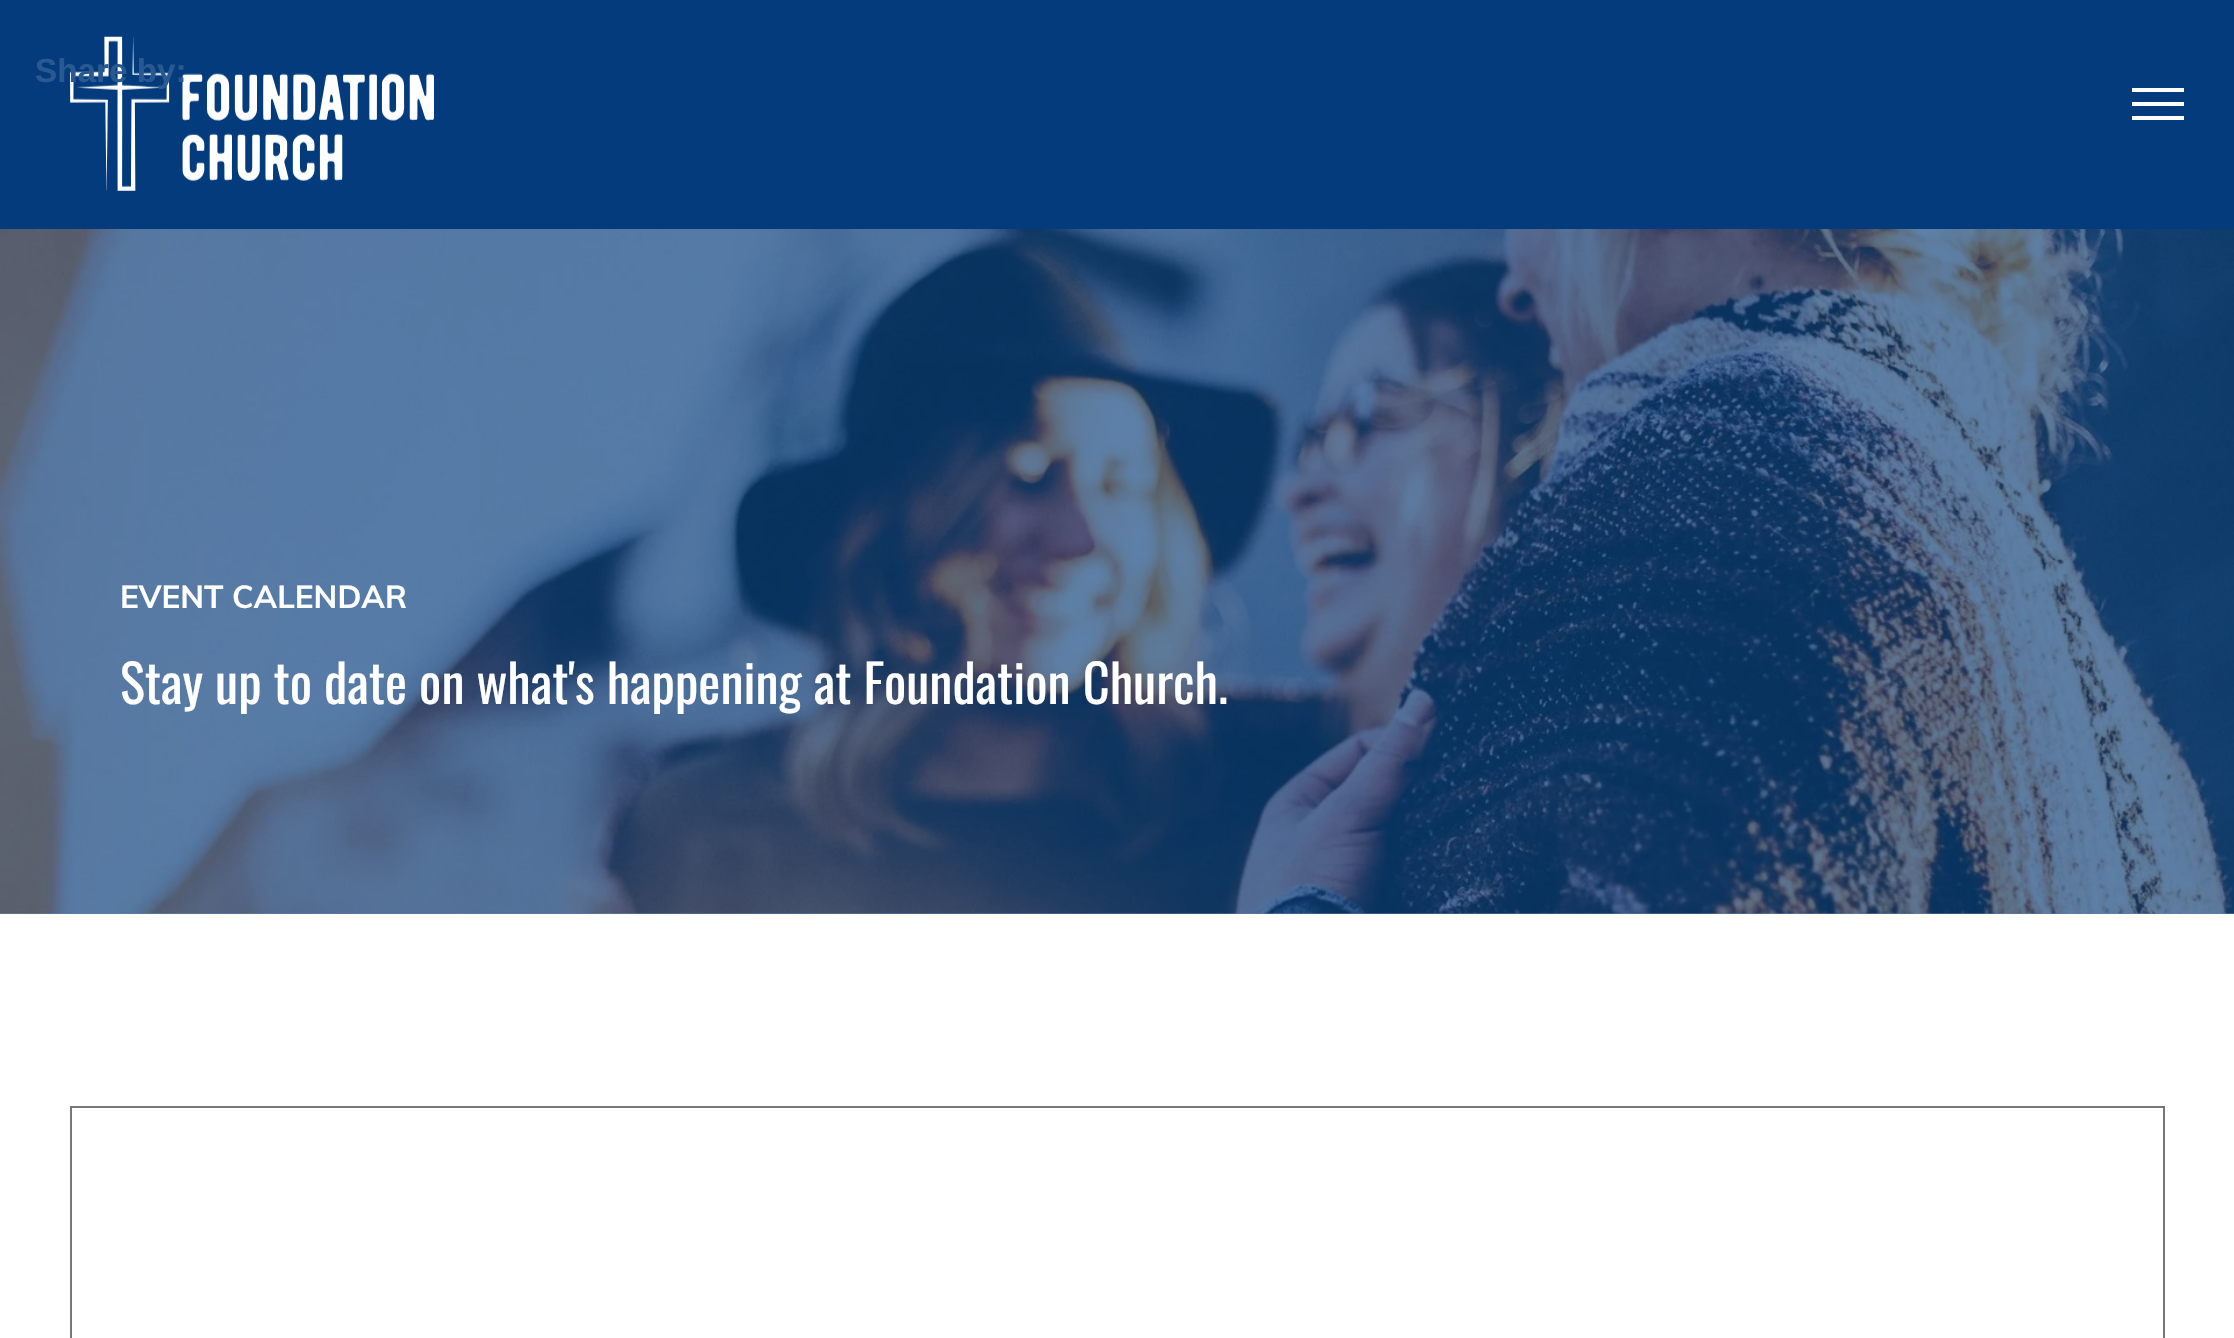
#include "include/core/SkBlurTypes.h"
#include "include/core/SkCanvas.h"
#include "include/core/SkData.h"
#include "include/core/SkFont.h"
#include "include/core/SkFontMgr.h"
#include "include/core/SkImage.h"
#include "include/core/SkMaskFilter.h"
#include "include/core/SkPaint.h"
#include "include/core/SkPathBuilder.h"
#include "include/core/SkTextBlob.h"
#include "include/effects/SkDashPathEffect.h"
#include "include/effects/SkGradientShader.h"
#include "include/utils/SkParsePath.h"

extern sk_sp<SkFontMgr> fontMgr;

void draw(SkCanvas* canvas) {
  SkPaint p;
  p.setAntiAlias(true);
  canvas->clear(SK_ColorWHITE);
  p.setColor(SkColorSetRGB(94, 130, 171));
  canvas->drawRect(SkRect::MakeLTRB(0, 913, 2234, 914), p);
  p.setColor(SkColorSetRGB(3, 59, 124));
  canvas->drawRect(SkRect::MakeLTRB(0, 0, 2234, 229), p);
  canvas->drawImageRect(SkImages::DeferredFromEncodedData(SkData::MakeFromFileName("images/1.png")), SkRect::MakeLTRB(70, 36, 434, 191), SkSamplingOptions());
  p.setColor(SK_ColorWHITE);
  canvas->drawRect(SkRect::MakeLTRB(2132, 88, 2184, 92), p);
  canvas->drawRect(SkRect::MakeLTRB(2132, 102, 2184, 106), p);
  canvas->drawRect(SkRect::MakeLTRB(2132, 116, 2184, 120), p);
  canvas->drawImageRect(SkImages::DeferredFromEncodedData(SkData::MakeFromFileName("images/2.png")), SkRect::MakeLTRB(0, 229, 2234, 914), SkSamplingOptions());
  p.setStyle(SkPaint::kStroke_Style);
  p.setStrokeWidth(2);
  p.setColor(SkColorSetRGB(119, 119, 119));
  canvas->drawRect(SkRect::MakeLTRB(71, 1107, 2164, 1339), p);
  SkFont font1(fontMgr->matchFamilyStyle("Liberation Sans", SkFontStyle::Bold()), 33.25f);
  font1.setSubpixel(true);
  p.setStyle(SkPaint::kFill_Style);
  p.setColor(SkColorSetRGB(41, 89, 144));
  canvas->drawString("Share by:", 35, 82, font1, p);
  SkFont font2(fontMgr->matchFamilyStyle("Muli", SkFontStyle::Bold()), 31.5f);
  font2.setSubpixel(true);
  p.setColor(SK_ColorWHITE);
  canvas->drawString("EVENT CALENDAR", 120, 608, font2, p);
  SkFont font3(fontMgr->matchFamilyStyle("Oswald", SkFontStyle::Normal()), 52.5f);
  font3.setSubpixel(true);
  canvas->drawString("Stay up to date on what's happening at Foundation Church.", 120, 704, font3, p);
}
